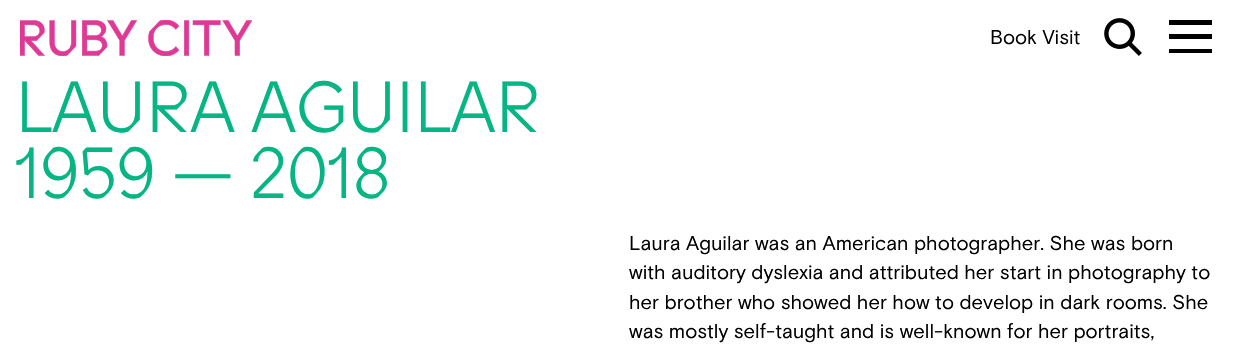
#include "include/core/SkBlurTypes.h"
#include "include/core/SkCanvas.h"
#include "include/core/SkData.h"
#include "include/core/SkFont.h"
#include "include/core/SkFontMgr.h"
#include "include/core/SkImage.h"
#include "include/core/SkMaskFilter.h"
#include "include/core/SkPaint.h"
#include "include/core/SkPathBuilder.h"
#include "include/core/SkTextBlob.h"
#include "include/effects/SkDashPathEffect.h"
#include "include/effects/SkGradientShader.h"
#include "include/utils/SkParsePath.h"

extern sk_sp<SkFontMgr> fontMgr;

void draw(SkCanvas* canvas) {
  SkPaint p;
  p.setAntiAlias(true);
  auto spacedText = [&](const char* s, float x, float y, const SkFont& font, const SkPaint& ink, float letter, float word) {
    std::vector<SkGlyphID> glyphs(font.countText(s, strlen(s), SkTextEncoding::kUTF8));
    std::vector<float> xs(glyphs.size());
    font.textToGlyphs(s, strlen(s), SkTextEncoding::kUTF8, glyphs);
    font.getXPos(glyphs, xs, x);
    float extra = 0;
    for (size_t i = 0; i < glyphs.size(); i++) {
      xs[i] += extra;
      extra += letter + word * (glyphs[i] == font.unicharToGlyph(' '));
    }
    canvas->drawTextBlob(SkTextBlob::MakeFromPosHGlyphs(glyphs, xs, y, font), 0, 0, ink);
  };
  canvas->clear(SK_ColorWHITE);
  canvas->drawImageRect(SkImages::DeferredFromEncodedData(SkData::MakeFromFileName("images/1.png")), SkRect::MakeLTRB(20, 20, 252, 56), SkSamplingOptions());
  canvas->drawImageRect(SkImages::DeferredFromEncodedData(SkData::MakeFromFileName("images/2.png")), SkRect::MakeLTRB(1104, 18, 1142, 56), SkSamplingOptions());
  p.setColor(SK_ColorBLACK);
  canvas->drawRect(SkRect::MakeLTRB(1169, 20, 1212, 25), p);
  canvas->drawRect(SkRect::MakeLTRB(1169, 34, 1212, 39), p);
  canvas->drawRect(SkRect::MakeLTRB(1169, 49, 1212, 53), p);
  SkFont font1(fontMgr->matchFamilyStyle("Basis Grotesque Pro", SkFontStyle::Normal()), 20);
  font1.setSubpixel(true);
  canvas->drawString("Book Visit", 990, 44, font1, p);
  SkFont font2(fontMgr->matchFamilyStyle("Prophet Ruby", SkFontStyle(300, SkFontStyle::kNormal_Width, SkFontStyle::kUpright_Slant)), 70);
  font2.setSubpixel(true);
  p.setColor(SkColorSetRGB(6, 181, 131));
  spacedText("LAURA AGUILAR", 14, 132, font2, p, -2.75f, 0);
  spacedText("1959 — 2018", 14, 198, font2, p, -2.75f, 0);
  p.setColor(SK_ColorBLACK);
  canvas->drawString("Laura Aguilar was an American photographer. She was born", 629, 250, font1, p);
  canvas->drawString("with auditory dyslexia and attributed her start in photography to", 629, 279, font1, p);
  canvas->drawString("her brother who showed her how to develop in dark rooms. She", 629, 309, font1, p);
  canvas->drawString("was mostly self-taught and is well-known for her portraits,", 629, 338, font1, p);
}
